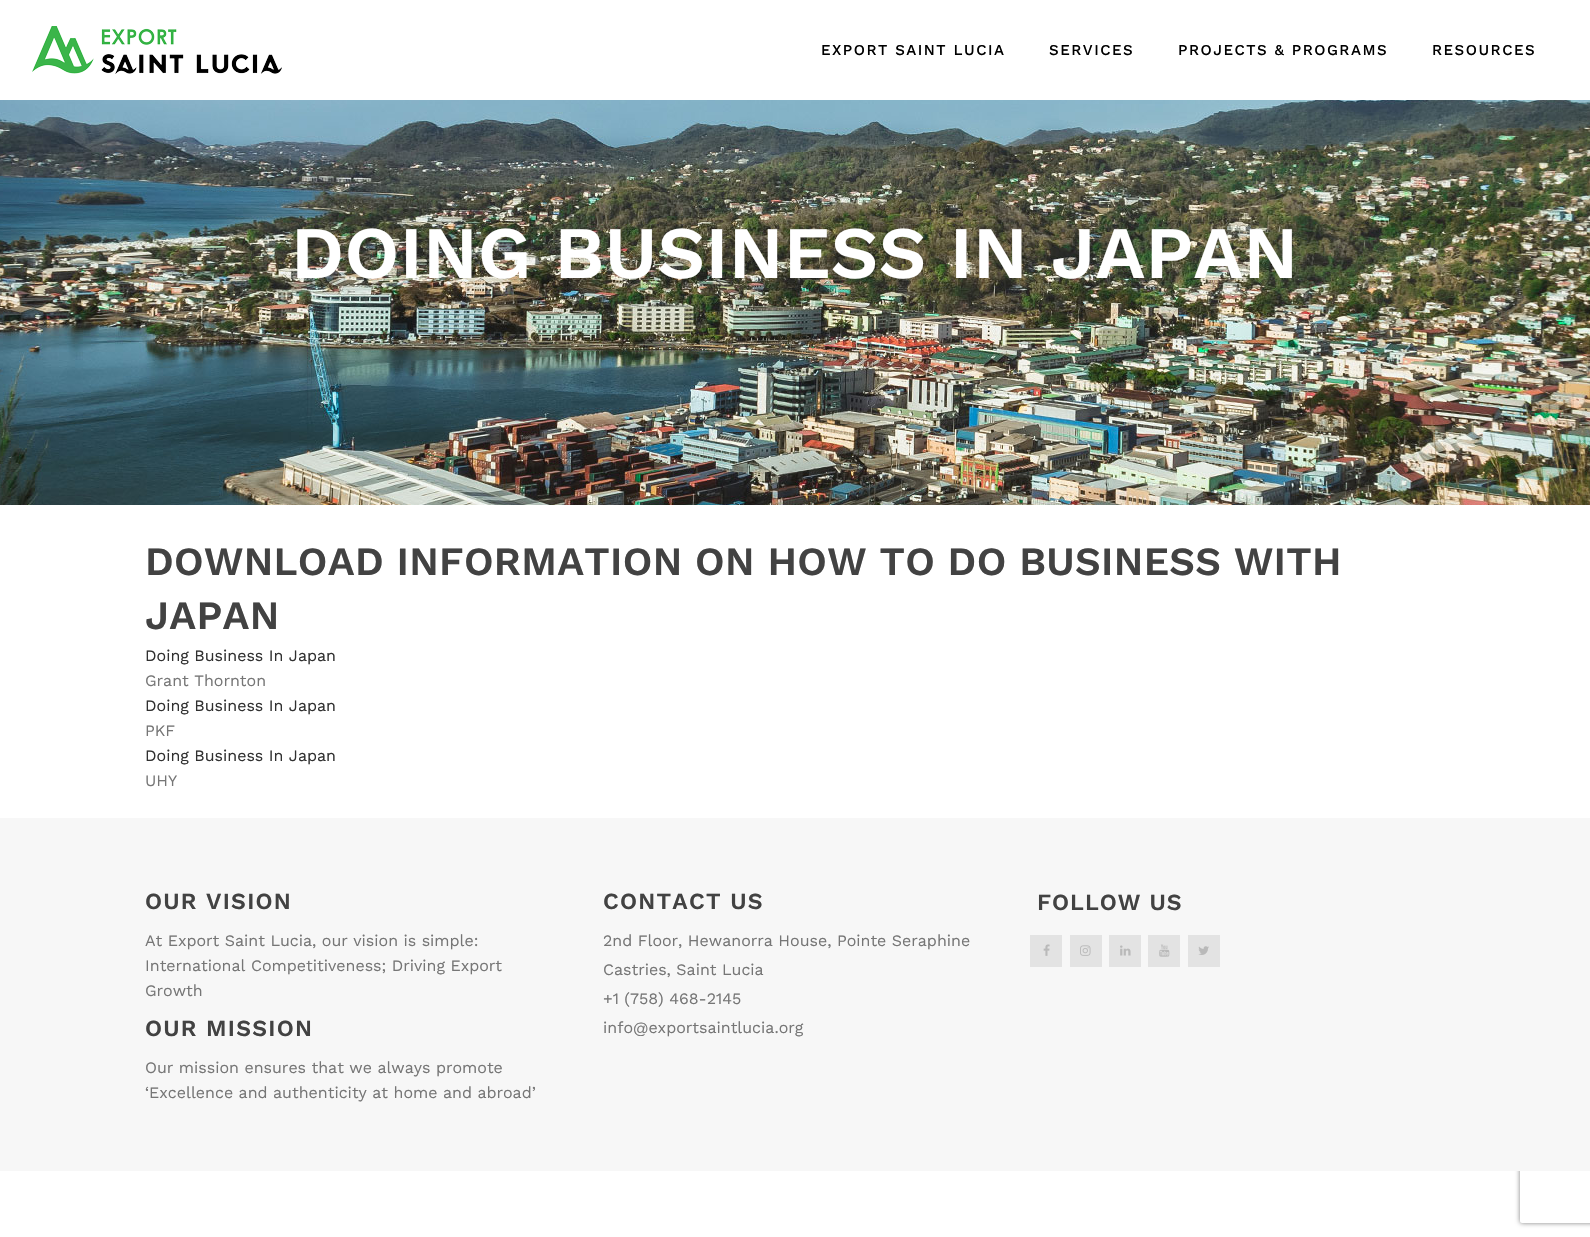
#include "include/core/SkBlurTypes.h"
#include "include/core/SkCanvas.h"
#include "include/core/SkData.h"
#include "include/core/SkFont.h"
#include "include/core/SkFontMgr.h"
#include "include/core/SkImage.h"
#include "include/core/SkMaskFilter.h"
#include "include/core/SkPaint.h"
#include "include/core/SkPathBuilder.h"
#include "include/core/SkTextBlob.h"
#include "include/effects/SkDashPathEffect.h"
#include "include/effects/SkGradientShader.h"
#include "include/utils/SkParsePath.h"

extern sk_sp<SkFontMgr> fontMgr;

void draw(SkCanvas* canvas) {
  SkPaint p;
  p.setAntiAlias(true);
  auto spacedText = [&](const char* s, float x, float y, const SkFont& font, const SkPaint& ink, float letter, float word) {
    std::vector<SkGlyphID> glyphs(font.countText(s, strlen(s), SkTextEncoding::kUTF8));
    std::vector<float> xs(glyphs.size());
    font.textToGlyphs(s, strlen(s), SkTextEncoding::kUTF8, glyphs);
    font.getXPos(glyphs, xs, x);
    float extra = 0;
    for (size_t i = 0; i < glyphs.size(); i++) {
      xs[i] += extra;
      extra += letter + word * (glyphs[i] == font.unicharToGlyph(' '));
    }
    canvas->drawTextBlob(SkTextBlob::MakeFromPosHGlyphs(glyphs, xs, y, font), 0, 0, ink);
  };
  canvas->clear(SK_ColorWHITE);
  canvas->drawImageRect(SkImages::DeferredFromEncodedData(SkData::MakeFromFileName("images/1.png")), SkRect::MakeLTRB(32, 26, 282, 74), SkSamplingOptions());
  canvas->drawImageRect(SkImages::DeferredFromEncodedData(SkData::MakeFromFileName("images/2.png")), SkRect::MakeLTRB(0, 100, 1590, 505), SkSamplingOptions());
  canvas->save();
  canvas->clipPath(SkPathBuilder(SkPathFillType::kEvenOdd).moveTo(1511, 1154).lineTo(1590, 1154).lineTo(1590, 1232).lineTo(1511, 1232).close().moveTo(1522, 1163).lineTo(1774, 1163).cubicTo(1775, 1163, 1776, 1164, 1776, 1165).lineTo(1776, 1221).cubicTo(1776, 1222, 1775, 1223, 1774, 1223).lineTo(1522, 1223).cubicTo(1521, 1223, 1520, 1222, 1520, 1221).lineTo(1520, 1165).cubicTo(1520, 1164, 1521, 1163, 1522, 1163).close().detach(), true);
  p.setColor(SkColorSetRGB(128, 128, 128));
  p.setMaskFilter(SkMaskFilter::MakeBlur(kNormal_SkBlurStyle, 2.5f));
  canvas->drawRoundRect(SkRect::MakeLTRB(1520, 1163, 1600, 1223), 2, 2, p);
  p.setMaskFilter(nullptr);
  canvas->restore();
  p.setColor(SkColorSetRGB(247, 247, 247));
  canvas->drawRect(SkRect::MakeLTRB(0, 818, 1590, 1171), p);
  p.setColor(SkColorSetRGB(227, 227, 227));
  canvas->drawRect(SkRect::MakeLTRB(1030, 935, 1062, 967), p);
  canvas->drawImageRect(SkImages::DeferredFromEncodedData(SkData::MakeFromFileName("images/3.png")), SkRect::MakeLTRB(1043, 944, 1050, 956), SkSamplingOptions());
  canvas->drawRect(SkRect::MakeLTRB(1070, 935, 1102, 967), p);
  canvas->drawImageRect(SkImages::DeferredFromEncodedData(SkData::MakeFromFileName("images/4.png")), SkRect::MakeLTRB(1080, 945, 1091, 956), SkSamplingOptions());
  canvas->drawRect(SkRect::MakeLTRB(1109, 935, 1141, 967), p);
  canvas->drawImageRect(SkImages::DeferredFromEncodedData(SkData::MakeFromFileName("images/5.png")), SkRect::MakeLTRB(1120, 945, 1131, 956), SkSamplingOptions());
  canvas->drawRect(SkRect::MakeLTRB(1148, 935, 1180, 967), p);
  canvas->drawImageRect(SkImages::DeferredFromEncodedData(SkData::MakeFromFileName("images/6.png")), SkRect::MakeLTRB(1159, 944, 1170, 957), SkSamplingOptions());
  canvas->drawRect(SkRect::MakeLTRB(1188, 935, 1220, 967), p);
  canvas->drawImageRect(SkImages::DeferredFromEncodedData(SkData::MakeFromFileName("images/7.png")), SkRect::MakeLTRB(1198, 946, 1209, 955), SkSamplingOptions());
  SkFont font1(fontMgr->matchFamilyStyle("Work Sans", SkFontStyle(500, SkFontStyle::kNormal_Width, SkFontStyle::kUpright_Slant)), 15);
  font1.setSubpixel(true);
  p.setColor(SK_ColorBLACK);
  spacedText("EXPORT SAINT LUCIA", 821, 55, font1, p, 1.5f, 0);
  spacedText("SERVICES", 1049, 55, font1, p, 1.5f, 0);
  spacedText("PROJECTS & PROGRAMS", 1178, 55, font1, p, 1.5f, 0);
  spacedText("RESOURCES", 1432, 55, font1, p, 1.5f, 0);
  SkFont font2(fontMgr->matchFamilyStyle("Work Sans", SkFontStyle(600, SkFontStyle::kNormal_Width, SkFontStyle::kUpright_Slant)), 74);
  font2.setSubpixel(true);
  p.setColor(SK_ColorWHITE);
  spacedText("DOING BUSINESS IN JAPAN", 291, 278, font2, p, 0.3f, 0);
  SkFont font3(fontMgr->matchFamilyStyle("Work Sans", SkFontStyle(600, SkFontStyle::kNormal_Width, SkFontStyle::kUpright_Slant)), 40);
  font3.setSubpixel(true);
  p.setColor(SkColorSetRGB(66, 66, 66));
  spacedText("DOWNLOAD INFORMATION ON HOW TO DO BUSINESS WITH", 145, 575, font3, p, 0.3f, 0);
  spacedText("JAPAN", 145, 629, font3, p, 0.3f, 0);
  SkFont font4(fontMgr->matchFamilyStyle("Work Sans", SkFontStyle::Normal()), 16);
  font4.setSubpixel(true);
  p.setColor(SkColorSetRGB(48, 48, 48));
  canvas->drawString("Doing Business In Japan", 145, 661, font4, p);
  p.setColor(SkColorSetRGB(118, 118, 118));
  canvas->drawString("Grant Thornton", 145, 686, font4, p);
  p.setColor(SkColorSetRGB(48, 48, 48));
  canvas->drawString("Doing Business In Japan", 145, 711, font4, p);
  p.setColor(SkColorSetRGB(118, 118, 118));
  canvas->drawString("PKF", 145, 736, font4, p);
  p.setColor(SkColorSetRGB(48, 48, 48));
  canvas->drawString("Doing Business In Japan", 145, 761, font4, p);
  p.setColor(SkColorSetRGB(118, 118, 118));
  canvas->drawString("UHY", 145, 786, font4, p);
  SkFont font5(fontMgr->matchFamilyStyle("Work Sans", SkFontStyle(600, SkFontStyle::kNormal_Width, SkFontStyle::kUpright_Slant)), 23);
  font5.setSubpixel(true);
  p.setColor(SkColorSetRGB(66, 66, 66));
  spacedText("OUR VISION", 145, 909, font5, p, 1.25f, 0);
  p.setColor(SkColorSetRGB(118, 118, 118));
  canvas->drawString("At Export Saint Lucia, our vision is simple:", 145, 946, font4, p);
  canvas->drawString("International Competitiveness; Driving Export", 145, 971, font4, p);
  canvas->drawString("Growth", 145, 996, font4, p);
  p.setColor(SkColorSetRGB(66, 66, 66));
  spacedText("OUR MISSION", 145, 1036, font5, p, 1.25f, 0);
  p.setColor(SkColorSetRGB(118, 118, 118));
  canvas->drawString("Our mission ensures that we always promote", 145, 1073, font4, p);
  canvas->drawString("‘Excellence and authenticity at home and abroad’", 145, 1098, font4, p);
  p.setColor(SkColorSetRGB(66, 66, 66));
  spacedText("CONTACT US", 603, 909, font5, p, 1.25f, 0);
  p.setColor(SkColorSetRGB(118, 118, 118));
  canvas->drawString("2nd Floor, Hewanorra House, Pointe Seraphine", 603, 946, font4, p);
  canvas->drawString("Castries, Saint Lucia", 603, 975, font4, p);
  canvas->drawString("+1 (758) 468-2145", 603, 1004, font4, p);
  canvas->drawString("info@exportsaintlucia.org", 603, 1033, font4, p);
  p.setColor(SkColorSetRGB(66, 66, 66));
  spacedText("FOLLOW US", 1037, 910, font5, p, 1, 0);
}
